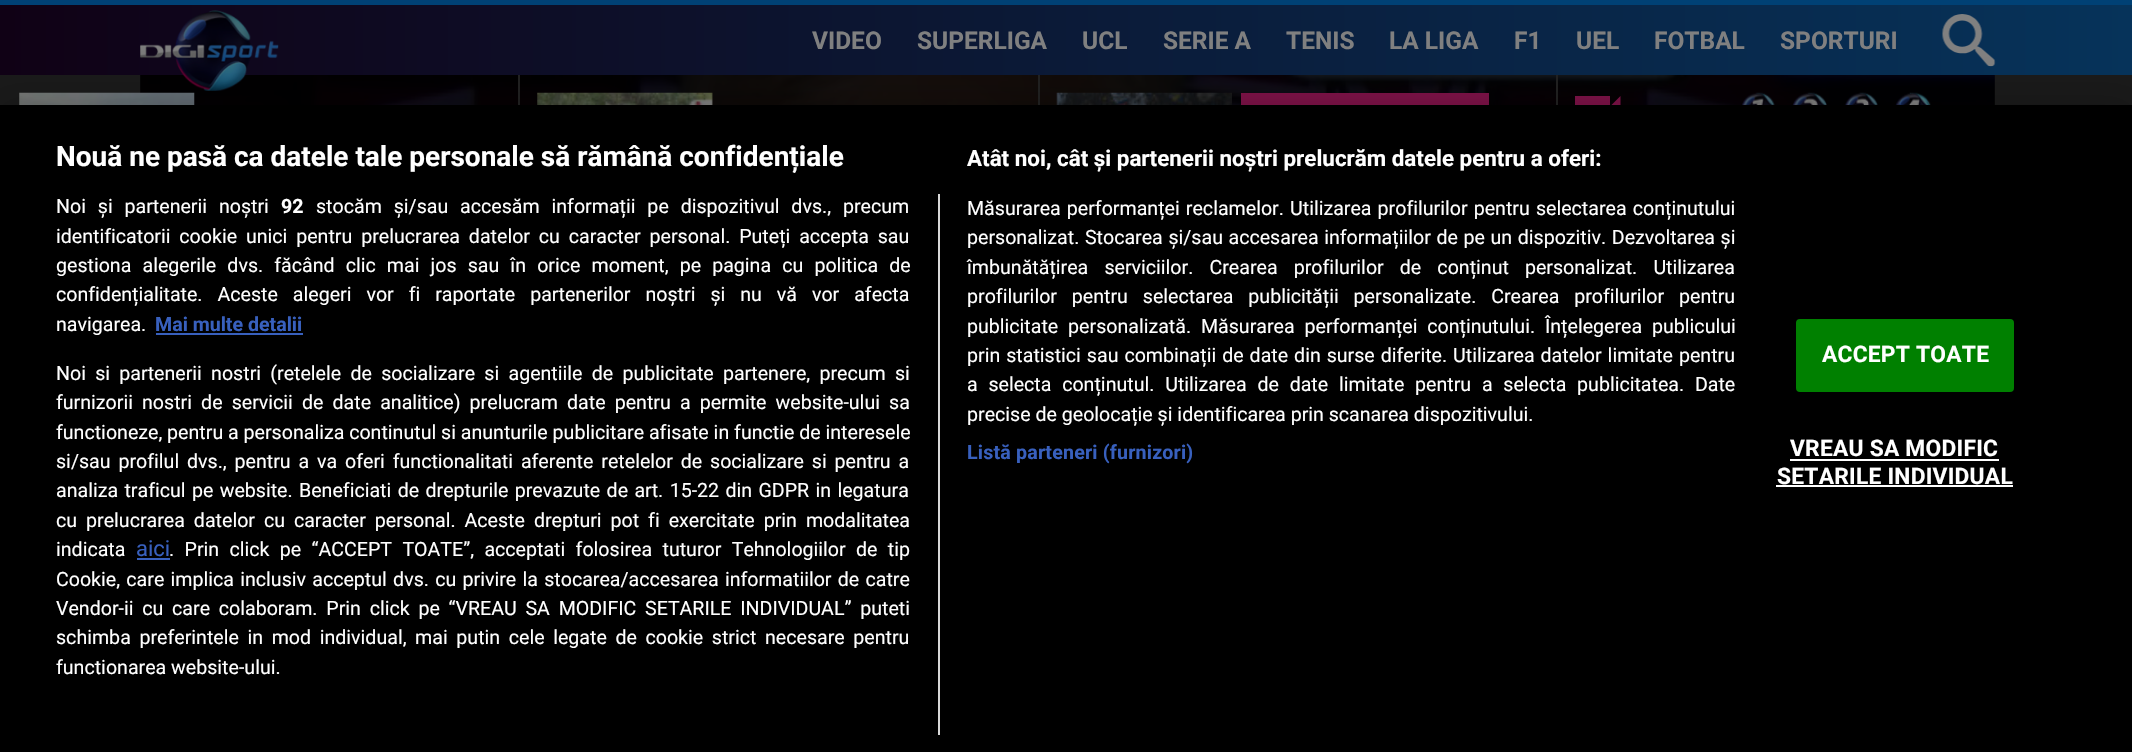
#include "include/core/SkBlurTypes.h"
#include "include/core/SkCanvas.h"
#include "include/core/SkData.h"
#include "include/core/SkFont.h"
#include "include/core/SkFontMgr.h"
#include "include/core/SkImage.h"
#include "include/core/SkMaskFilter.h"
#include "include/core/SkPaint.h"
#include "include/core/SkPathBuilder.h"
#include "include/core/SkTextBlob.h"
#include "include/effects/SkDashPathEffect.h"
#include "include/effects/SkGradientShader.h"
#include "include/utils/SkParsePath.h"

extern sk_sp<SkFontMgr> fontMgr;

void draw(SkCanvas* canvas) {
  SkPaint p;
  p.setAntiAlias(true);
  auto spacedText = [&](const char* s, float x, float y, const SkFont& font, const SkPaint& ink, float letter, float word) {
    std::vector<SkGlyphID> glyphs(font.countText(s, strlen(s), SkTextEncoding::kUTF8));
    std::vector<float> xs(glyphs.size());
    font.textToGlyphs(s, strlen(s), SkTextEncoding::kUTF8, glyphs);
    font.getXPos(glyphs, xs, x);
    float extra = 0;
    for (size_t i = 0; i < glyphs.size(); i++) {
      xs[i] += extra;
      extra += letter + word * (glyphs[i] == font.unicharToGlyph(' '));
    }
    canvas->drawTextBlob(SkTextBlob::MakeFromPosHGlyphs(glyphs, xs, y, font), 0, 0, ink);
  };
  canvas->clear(SkColorSetRGB(128, 128, 128));
  p.setColor(SkColorSetRGB(0, 65, 117));
  canvas->drawRect(SkRect::MakeLTRB(0, 0, 2132, 5), p);
  {
    const SkColor colors[] = {SkColorSetRGB(16, 1, 21), SkColorSetRGB(6, 51, 90)};
    const float stops[] = {0, 1};
    const SkPoint ends[] = {{0, 40}, {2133, 40}};
    p.setShader(SkGradientShader::MakeLinear(ends, colors, stops, 2, SkTileMode::kClamp));
    p.setAlpha(255);
  }
  canvas->drawRect(SkRect::MakeLTRB(0, 5, 2132, 75), p);
  canvas->drawImageRect(SkImages::DeferredFromEncodedData(SkData::MakeFromFileName("images/10.png")), SkRect::MakeLTRB(140, 75, 1995, 105), SkSamplingOptions());
  p.setShader(nullptr);
  p.setColor(SkColorSetARGB(204, 0, 0, 0));
  canvas->drawRect(SkRect::MakeLTRB(0, 75, 2132, 105), p);
  canvas->drawImageRect(SkImages::DeferredFromEncodedData(SkData::MakeFromFileName("images/1.png")), SkRect::MakeLTRB(140, 10, 279, 91), SkSamplingOptions());
  canvas->drawImageRect(SkImages::DeferredFromEncodedData(SkData::MakeFromFileName("images/2.png")), SkRect::MakeLTRB(1942, 14, 1996, 67), SkSamplingOptions());
  canvas->drawImageRect(SkImages::DeferredFromEncodedData(SkData::MakeFromFileName("images/3.png")), SkRect::MakeLTRB(19, 92, 195, 105), SkSamplingOptions());
  p.setColor(SkColorSetRGB(33, 33, 33));
  canvas->drawRect(SkRect::MakeLTRB(518, 75, 520, 105), p);
  canvas->drawImageRect(SkImages::DeferredFromEncodedData(SkData::MakeFromFileName("images/4.png")), SkRect::MakeLTRB(537, 92, 713, 105), SkSamplingOptions());
  canvas->drawRect(SkRect::MakeLTRB(1038, 75, 1040, 105), p);
  canvas->drawImageRect(SkImages::DeferredFromEncodedData(SkData::MakeFromFileName("images/5.png")), SkRect::MakeLTRB(1056, 92, 1232, 105), SkSamplingOptions());
  p.setColor(SkColorSetRGB(124, 18, 71));
  canvas->drawRect(SkRect::MakeLTRB(1241, 93, 1489, 105), p);
  p.setColor(SkColorSetRGB(33, 33, 33));
  canvas->drawRect(SkRect::MakeLTRB(1556, 75, 1558, 105), p);
  p.setColor(SkColorSetRGB(124, 18, 71));
  canvas->drawRect(SkRect::MakeLTRB(1575, 96, 1610, 105), p);
  canvas->drawPath(SkPathBuilder().moveTo(1620.5f, 96).lineTo(1620.5f, 124).lineTo(1606.5f, 110).close().detach(), p);
  canvas->drawImageRect(SkImages::DeferredFromEncodedData(SkData::MakeFromFileName("images/6.png")), SkRect::MakeLTRB(1741, 92, 1775, 105), SkSamplingOptions());
  canvas->drawImageRect(SkImages::DeferredFromEncodedData(SkData::MakeFromFileName("images/7.png")), SkRect::MakeLTRB(1792, 92, 1827, 105), SkSamplingOptions());
  canvas->drawImageRect(SkImages::DeferredFromEncodedData(SkData::MakeFromFileName("images/8.png")), SkRect::MakeLTRB(1844, 92, 1878, 105), SkSamplingOptions());
  canvas->drawImageRect(SkImages::DeferredFromEncodedData(SkData::MakeFromFileName("images/9.png")), SkRect::MakeLTRB(1895, 92, 1931, 105), SkSamplingOptions());
  p.setColor(SkColorSetARGB(51, 0, 0, 0));
  p.setMaskFilter(SkMaskFilter::MakeBlur(kNormal_SkBlurStyle, 16));
  canvas->drawRect(SkRect::MakeLTRB(0, 105, 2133, 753), p);
  p.setMaskFilter(nullptr);
  p.setColor(SK_ColorBLACK);
  canvas->drawRect(SkRect::MakeLTRB(0, 105, 2132, 752), p);
  p.setColor(SkColorSetRGB(216, 216, 216));
  canvas->drawRect(SkRect::MakeLTRB(938, 194, 940, 735), p);
  p.setColor(SkColorSetRGB(56, 96, 190));
  canvas->drawRect(SkRect::MakeLTRB(156, 333, 303, 335), p);
  canvas->drawRect(SkRect::MakeLTRB(137, 558, 170, 560), p);
  p.setColor(SkColorSetRGB(0, 128, 0));
  canvas->drawRoundRect(SkRect::MakeLTRB(1797, 320, 2013, 391), 3, 3, p);
  p.setStyle(SkPaint::kStroke_Style);
  p.setStrokeWidth(2);
  canvas->drawRoundRect(SkRect::MakeLTRB(1797, 320, 2013, 391), 3, 3, p);
  p.setStyle(SkPaint::kFill_Style);
  p.setColor(SK_ColorWHITE);
  canvas->drawRect(SkRect::MakeLTRB(1790, 459, 1999, 461), p);
  canvas->drawRect(SkRect::MakeLTRB(1776, 485, 2013, 487), p);
  SkFont font1(fontMgr->matchFamilyStyle("Roboto", SkFontStyle::Bold()), 24.5f);
  font1.setSubpixel(true);
  p.setColor(SkColorSetRGB(128, 128, 128));
  canvas->drawString("VIDEO", 812, 49, font1, p);
  canvas->drawString("SUPERLIGA", 917, 49, font1, p);
  canvas->drawString("UCL", 1082, 49, font1, p);
  canvas->drawString("SERIE A", 1163, 49, font1, p);
  canvas->drawString("TENIS", 1286, 49, font1, p);
  canvas->drawString("LA LIGA", 1389, 49, font1, p);
  canvas->drawString("F1", 1514, 49, font1, p);
  canvas->drawString("UEL", 1576, 49, font1, p);
  canvas->drawString("FOTBAL", 1654, 49, font1, p);
  canvas->drawString("SPORTURI", 1780, 49, font1, p);
  SkFont font2(fontMgr->matchFamilyStyle("Roboto", SkFontStyle::Bold()), 28);
  font2.setSubpixel(true);
  p.setColor(SK_ColorWHITE);
  canvas->drawString("Nouă ne pasă ca datele tale personale să rămână confidențiale", 56, 166, font2, p);
  SkFont font3(fontMgr->matchFamilyStyle("Roboto", SkFontStyle::Bold()), 22.4f);
  font3.setSubpixel(true);
  canvas->drawString("Atât noi, cât și partenerii noștri prelucrăm datele pentru a oferi:", 967, 166, font3, p);
  SkFont font4(fontMgr->matchFamilyStyle("Roboto", SkFontStyle::Normal()), 19.6f);
  font4.setSubpixel(true);
  spacedText("Măsurarea performanței reclamelor. Utilizarea profilurilor pentru selectarea conținutului", 967, 215, font4, p, 0, 1.25f);
  spacedText("personalizat. Stocarea și/sau accesarea informațiilor de pe un dispozitiv. Dezvoltarea și", 967, 244, font4, p, 0, 0.75f);
  spacedText("îmbunătățirea serviciilor. Crearea profilurilor de conținut personalizat. Utilizarea", 967, 274, font4, p, 0, 11.25f);
  spacedText("profilurilor pentru selectarea publicității personalizate. Crearea profilurilor pentru", 967, 303, font4, p, 0, 10);
  spacedText("publicitate personalizată. Măsurarea performanței conținutului. Înțelegerea publicului", 967, 333, font4, p, 0, 5);
  spacedText("prin statistici sau combinații de date din surse diferite. Utilizarea datelor limitate pentru", 967, 362, font4, p, 0, 1.1f);
  spacedText("a selecta conținutul. Utilizarea de date limitate pentru a selecta publicitatea. Date", 967, 391, font4, p, 0, 5.9f);
  canvas->drawString("precise de geolocație și identificarea prin scanarea dispozitivului.", 967, 421, font4, p);
  SkFont font5(fontMgr->matchFamilyStyle("Roboto", SkFontStyle::Bold()), 19.6f);
  font5.setSubpixel(true);
  p.setColor(SkColorSetRGB(56, 96, 190));
  spacedText("Listă parteneri (furnizori)", 967, 459, font5, p, 0.2f, 0);
  p.setColor(SK_ColorWHITE);
  spacedText("Noi și partenerii noștri", 56, 213, font4, p, 0, 7);
  canvas->drawString("92", 281, 213, font5, p);
  spacedText("stocăm și/sau accesăm informații pe dispozitivul dvs., precum", 316, 213, font4, p, 0, 7);
  spacedText("identificatorii cookie unici pentru prelucrarea datelor cu caracter personal. Puteți accepta sau", 56, 243, font4, p, 0, 4);
  spacedText("gestiona alegerile dvs. făcând clic mai jos sau în orice moment, pe pagina cu politica de", 56, 272, font4, p, 0, 6.25f);
  spacedText("confidențialitate. Aceste alegeri vor fi raportate partenerilor noștri și nu vă vor afecta", 56, 301, font4, p, 0, 10.1f);
  canvas->drawString("navigarea.", 56, 331, font4, p);
  p.setColor(SkColorSetRGB(56, 96, 190));
  canvas->drawString("Mai multe detalii", 155, 331, font5, p);
  p.setColor(SK_ColorWHITE);
  spacedText("Noi si partenerii nostri (retelele de socializare si agentiile de publicitate partenere, precum si", 56, 380, font4, p, 0, 4.4f);
  spacedText("furnizorii nostri de servicii de date analitice) prelucram date pentru a permite website-ului sa", 56, 409, font4, p, 0, 4.25f);
  canvas->drawString("functioneze, pentru a personaliza continutul si anunturile publicitare afisate in functie de interesele", 56, 439, font4, p);
  spacedText("si/sau profilul dvs., pentru a va oferi functionalitati aferente retelelor de socializare si pentru a", 56, 468, font4, p, 0, 3);
  spacedText("analiza traficul pe website. Beneficiati de drepturile prevazute de art. 15-22 din GDPR in legatura", 56, 497, font4, p, 0, 1.5f);
  spacedText("cu prelucrarea datelor cu caracter personal. Aceste drepturi pot fi exercitate prin modalitatea", 56, 527, font4, p, 0, 4.1f);
  canvas->drawString("indicata", 56, 556, font4, p);
  SkFont font6(fontMgr->matchFamilyStyle("Roboto", SkFontStyle::Normal()), 22);
  font6.setSubpixel(true);
  p.setColor(SkColorSetRGB(56, 96, 190));
  canvas->drawString("aici", 136, 556, font6, p);
  p.setColor(SK_ColorWHITE);
  spacedText(". Prin click pe “ACCEPT TOATE”, acceptati folosirea tuturor Tehnologiilor de tip", 169, 556, font4, p, 0, 5.5f);
  spacedText("Cookie, care implica inclusiv acceptul dvs. cu privire la stocarea/accesarea informatiilor de catre", 56, 586, font4, p, 0, 1.4f);
  spacedText("Vendor-ii cu care colaboram. Prin click pe “VREAU SA MODIFIC SETARILE INDIVIDUAL” puteti", 56, 615, font4, p, 0, 3.9f);
  spacedText("schimba preferintele in mod individual, mai putin cele legate de cookie strict necesare pentru", 56, 644, font4, p, 0, 3.75f);
  canvas->drawString("functionarea website-ului.", 56, 674, font4, p);
  SkFont font7(fontMgr->matchFamilyStyle("Roboto", SkFontStyle::Bold()), 22.75f);
  font7.setSubpixel(true);
  spacedText("ACCEPT TOATE", 1822, 362, font7, p, 0.25f, 0);
  spacedText("VREAU SA MODIFIC", 1790, 456, font7, p, 0.25f, 0);
  spacedText("SETARILE INDIVIDUAL", 1777, 484, font7, p, 0.25f, 0);
}
